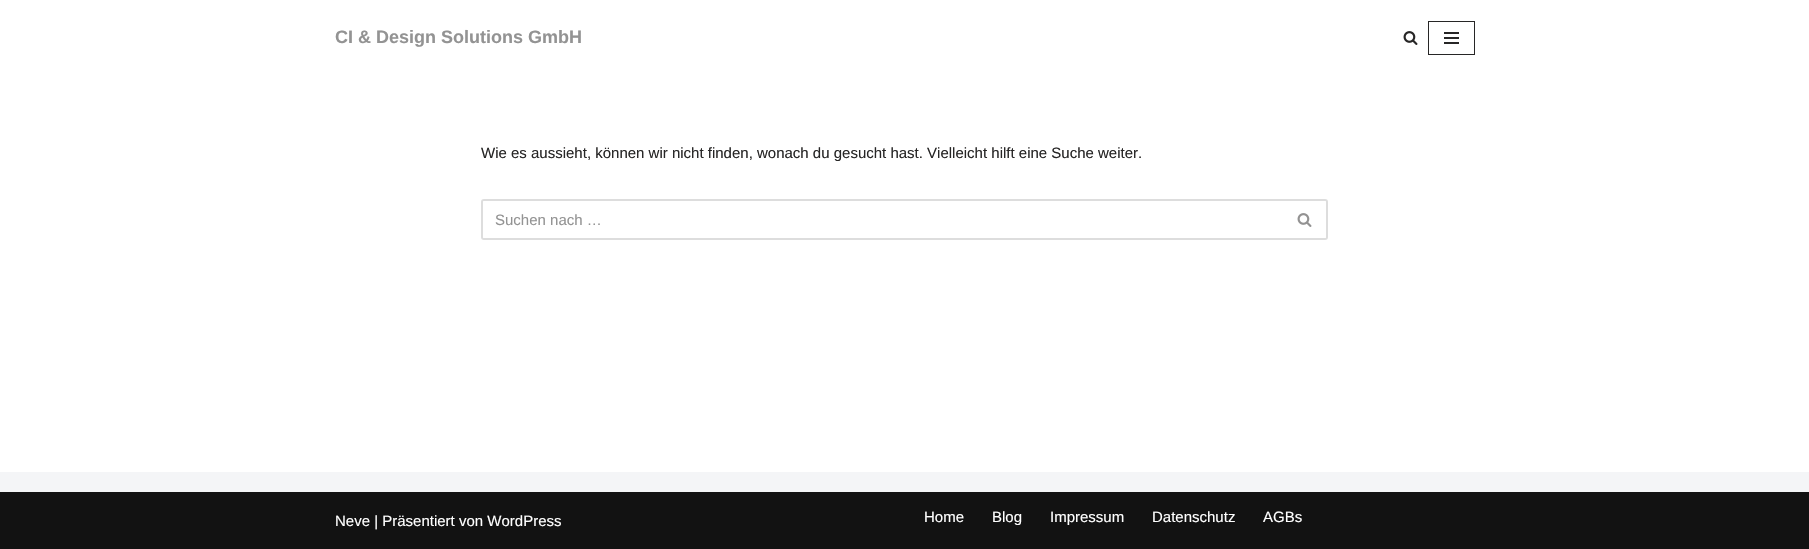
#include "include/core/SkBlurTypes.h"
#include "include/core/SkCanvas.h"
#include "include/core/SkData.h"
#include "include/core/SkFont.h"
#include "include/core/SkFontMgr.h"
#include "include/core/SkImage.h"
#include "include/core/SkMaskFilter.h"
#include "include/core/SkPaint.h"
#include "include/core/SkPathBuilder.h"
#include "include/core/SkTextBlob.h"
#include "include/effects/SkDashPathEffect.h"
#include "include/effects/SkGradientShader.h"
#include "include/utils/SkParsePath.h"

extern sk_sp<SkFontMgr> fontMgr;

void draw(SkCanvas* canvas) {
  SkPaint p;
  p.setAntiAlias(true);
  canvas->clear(SK_ColorWHITE);
  canvas->drawImageRect(SkImages::DeferredFromEncodedData(SkData::MakeFromFileName("images/1.png")), SkRect::MakeLTRB(1403, 31, 1418, 45), SkSamplingOptions());
  p.setStyle(SkPaint::kStroke_Style);
  p.setStrokeWidth(1);
  p.setColor(SkColorSetRGB(39, 38, 38));
  canvas->drawRect(SkRect::MakeLTRB(1428.5f, 21.5f, 1474.5f, 54.5f), p);
  p.setStyle(SkPaint::kFill_Style);
  canvas->drawRect(SkRect::MakeLTRB(1444, 32, 1459, 34), p);
  canvas->drawRect(SkRect::MakeLTRB(1444, 37, 1459, 39), p);
  canvas->drawRect(SkRect::MakeLTRB(1444, 42, 1459, 44), p);
  p.setColor(SkColorSetRGB(221, 221, 221));
  canvas->drawPath(SkPathBuilder(SkPathFillType::kEvenOdd).moveTo(484, 199).lineTo(1283, 199).lineTo(1283, 240).lineTo(484, 240).cubicTo(482, 240, 481, 239, 481, 237).lineTo(481, 202).cubicTo(481, 200, 482, 199, 484, 199).close().moveTo(484, 201).lineTo(1283, 201).lineTo(1283, 238).lineTo(484, 238).cubicTo(483, 238, 483, 238, 483, 237).lineTo(483, 202).cubicTo(483, 201, 483, 201, 484, 201).close().detach(), p);
  canvas->drawPath(SkPathBuilder(SkPathFillType::kEvenOdd).moveTo(1283, 199).lineTo(1325, 199).cubicTo(1327, 199, 1328, 200, 1328, 202).lineTo(1328, 237).cubicTo(1328, 239, 1327, 240, 1325, 240).lineTo(1283, 240).close().moveTo(1283, 201).lineTo(1325, 201).cubicTo(1326, 201, 1326, 201, 1326, 202).lineTo(1326, 237).cubicTo(1326, 238, 1326, 238, 1325, 238).lineTo(1283, 238).close().detach(), p);
  canvas->drawImageRect(SkImages::DeferredFromEncodedData(SkData::MakeFromFileName("images/2.png")), SkRect::MakeLTRB(1297, 213, 1312, 227), SkSamplingOptions());
  p.setColor(SkColorSetRGB(18, 18, 18));
  canvas->drawRect(SkRect::MakeLTRB(0, 492, 1809, 549), p);
  p.setColor(SkColorSetRGB(244, 245, 247));
  canvas->drawRect(SkRect::MakeLTRB(0, 472, 1809, 492), p);
  SkFont font1(fontMgr->matchFamilyStyle("Liberation Sans", SkFontStyle::Bold()), 18);
  font1.setSubpixel(true);
  p.setColor(SkColorSetRGB(147, 147, 147));
  canvas->drawString("CI & Design Solutions GmbH", 335, 43, font1, p);
  SkFont font2(fontMgr->matchFamilyStyle("Liberation Sans", SkFontStyle::Normal()), 15);
  font2.setSubpixel(true);
  p.setColor(SkColorSetRGB(39, 38, 38));
  canvas->drawString("Wie es aussieht, können wir nicht finden, wonach du gesucht hast. Vielleicht hilft eine Suche weiter.", 481, 158, font2, p);
  p.setColor(SkColorSetRGB(147, 147, 147));
  canvas->drawString("Suchen nach …", 495, 225, font2, p);
  p.setColor(SK_ColorWHITE);
  canvas->drawString("Neve | Präsentiert von WordPress", 335, 526, font2, p);
  canvas->drawString("Home", 924, 522, font2, p);
  canvas->drawString("Blog", 992, 522, font2, p);
  canvas->drawString("Impressum", 1050, 522, font2, p);
  canvas->drawString("Datenschutz", 1152, 522, font2, p);
  canvas->drawString("AGBs", 1263, 522, font2, p);
}
